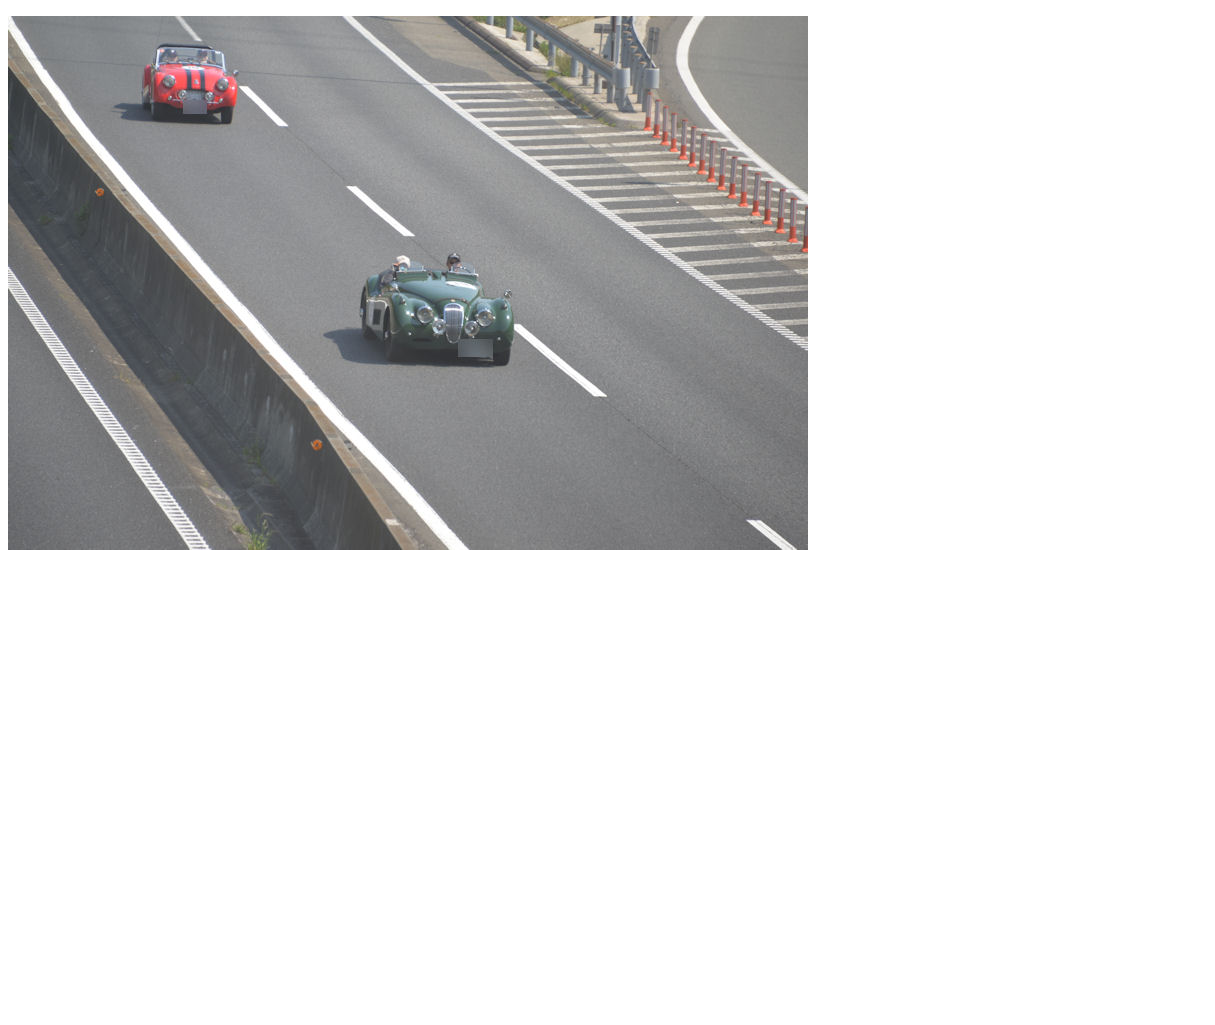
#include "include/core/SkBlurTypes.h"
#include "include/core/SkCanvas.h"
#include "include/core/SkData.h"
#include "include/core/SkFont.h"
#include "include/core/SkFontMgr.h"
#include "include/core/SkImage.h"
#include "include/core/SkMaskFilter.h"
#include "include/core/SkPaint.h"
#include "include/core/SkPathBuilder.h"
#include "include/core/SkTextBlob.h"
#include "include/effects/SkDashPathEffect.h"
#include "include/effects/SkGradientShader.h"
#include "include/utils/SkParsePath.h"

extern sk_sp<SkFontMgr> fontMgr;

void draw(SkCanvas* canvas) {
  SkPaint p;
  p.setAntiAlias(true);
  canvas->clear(SK_ColorWHITE);
  canvas->drawImageRect(SkImages::DeferredFromEncodedData(SkData::MakeFromFileName("images/1.png")), SkRect::MakeLTRB(8, 16, 808, 550), SkSamplingOptions());
}
